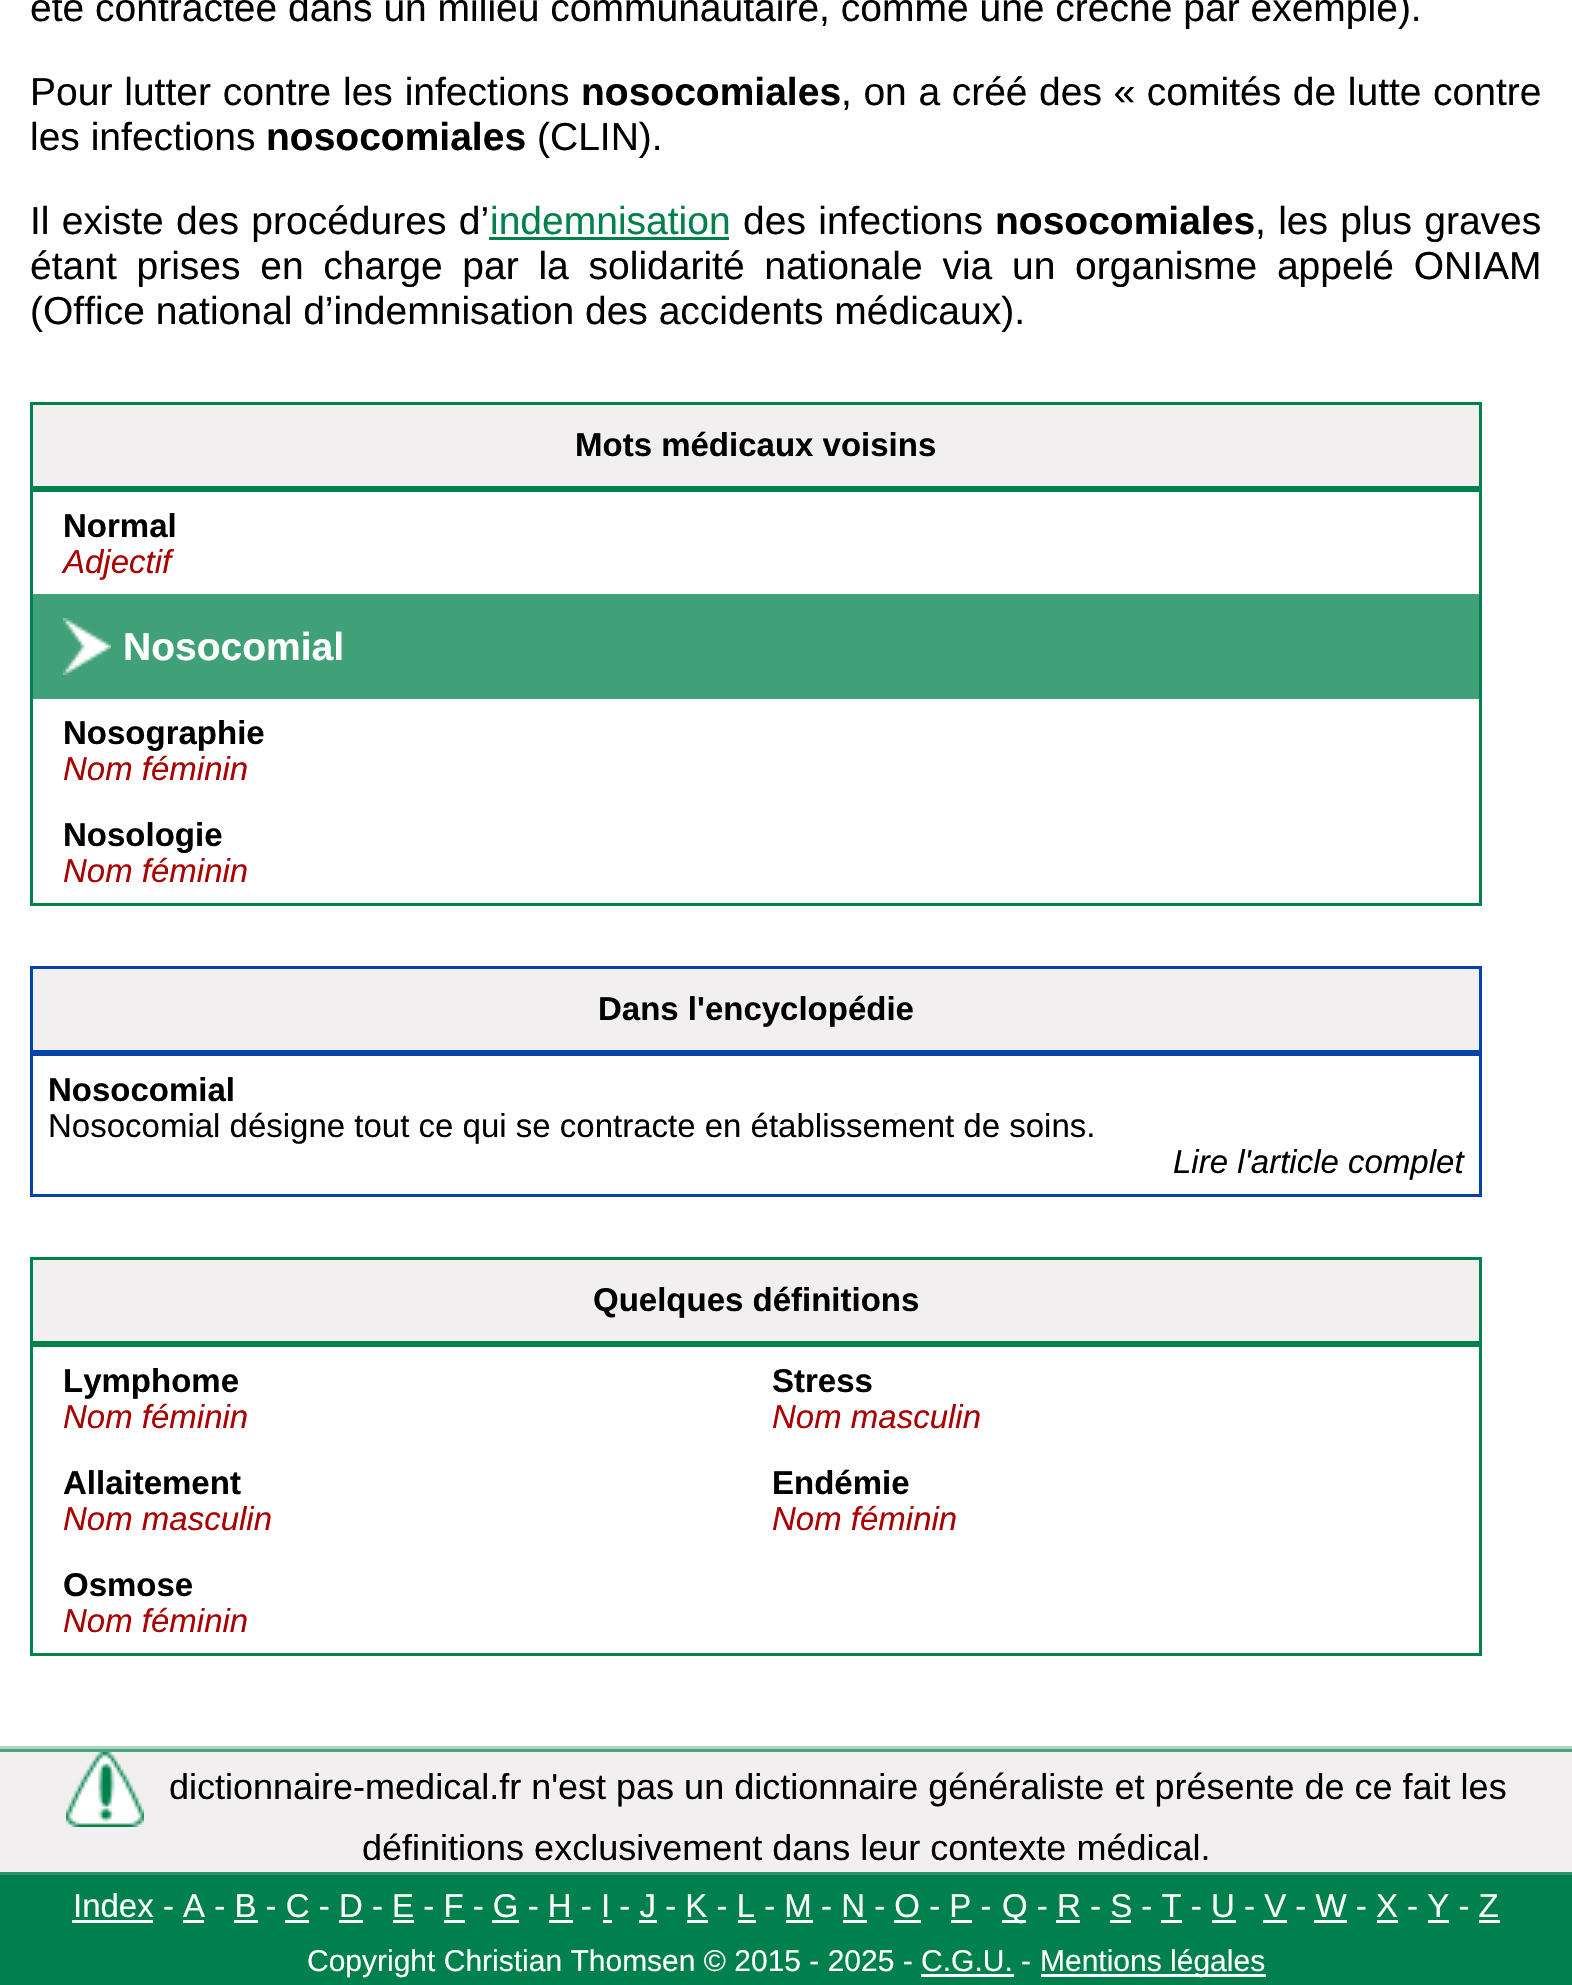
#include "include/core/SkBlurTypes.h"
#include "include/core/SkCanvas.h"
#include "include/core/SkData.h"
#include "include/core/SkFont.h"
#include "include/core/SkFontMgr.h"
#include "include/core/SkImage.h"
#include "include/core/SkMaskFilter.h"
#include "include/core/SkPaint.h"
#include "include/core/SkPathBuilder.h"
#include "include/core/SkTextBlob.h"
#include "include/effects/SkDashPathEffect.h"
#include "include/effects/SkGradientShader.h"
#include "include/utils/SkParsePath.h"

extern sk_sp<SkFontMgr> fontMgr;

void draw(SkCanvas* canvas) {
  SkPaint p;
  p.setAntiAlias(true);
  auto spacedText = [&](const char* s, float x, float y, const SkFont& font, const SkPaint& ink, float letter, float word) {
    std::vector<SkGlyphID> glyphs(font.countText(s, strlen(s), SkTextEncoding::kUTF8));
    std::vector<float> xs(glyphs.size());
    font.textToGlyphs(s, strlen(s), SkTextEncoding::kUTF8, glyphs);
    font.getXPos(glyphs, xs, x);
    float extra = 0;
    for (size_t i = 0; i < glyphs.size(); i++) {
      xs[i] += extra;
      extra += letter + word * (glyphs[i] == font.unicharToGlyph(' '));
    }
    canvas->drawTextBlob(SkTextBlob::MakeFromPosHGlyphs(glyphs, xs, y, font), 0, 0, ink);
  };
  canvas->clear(SK_ColorWHITE);
  p.setColor(SkColorSetRGB(0, 128, 75));
  canvas->drawRect(SkRect::MakeLTRB(489, 237, 729, 240), p);
  p.setColor(SkColorSetRGB(242, 239, 240));
  canvas->drawRect(SkRect::MakeLTRB(31.5f, 403.5f, 1480.5f, 487.5f), p);
  p.setStyle(SkPaint::kStroke_Style);
  p.setStrokeWidth(3);
  p.setColor(SkColorSetRGB(0, 128, 75));
  canvas->drawRect(SkRect::MakeLTRB(31.5f, 403.5f, 1480.5f, 487.5f), p);
  canvas->drawRect(SkRect::MakeLTRB(31.5f, 490.5f, 1480.5f, 904.5f), p);
  p.setStyle(SkPaint::kFill_Style);
  p.setColor(SkColorSetRGB(64, 160, 120));
  canvas->drawRect(SkRect::MakeLTRB(33, 594, 1479, 699), p);
  canvas->drawImageRect(SkImages::DeferredFromEncodedData(SkData::MakeFromFileName("images/1.png")), SkRect::MakeLTRB(63, 618, 111, 675), SkSamplingOptions());
  p.setColor(SkColorSetRGB(242, 239, 240));
  canvas->drawRect(SkRect::MakeLTRB(31.5f, 967.5f, 1480.5f, 1051.5f), p);
  p.setStyle(SkPaint::kStroke_Style);
  p.setColor(SkColorSetRGB(0, 68, 170));
  canvas->drawRect(SkRect::MakeLTRB(31.5f, 967.5f, 1480.5f, 1051.5f), p);
  canvas->drawRect(SkRect::MakeLTRB(31.5f, 1054.5f, 1480.5f, 1195.5f), p);
  p.setStyle(SkPaint::kFill_Style);
  p.setColor(SkColorSetRGB(242, 239, 240));
  canvas->drawRect(SkRect::MakeLTRB(31.5f, 1258.5f, 1480.5f, 1342.5f), p);
  p.setStyle(SkPaint::kStroke_Style);
  p.setColor(SkColorSetRGB(0, 128, 75));
  canvas->drawRect(SkRect::MakeLTRB(31.5f, 1258.5f, 1480.5f, 1342.5f), p);
  canvas->drawRect(SkRect::MakeLTRB(31.5f, 1345.5f, 1480.5f, 1654.5f), p);
  p.setStyle(SkPaint::kFill_Style);
  p.setColor(SkColorSetRGB(175, 215, 199));
  canvas->drawRect(SkRect::MakeLTRB(0, 1746, 1572, 1749), p);
  p.setColor(SkColorSetRGB(242, 239, 240));
  canvas->drawRect(SkRect::MakeLTRB(0, 1752, 1572, 1872), p);
  p.setColor(SkColorSetRGB(76, 164, 127));
  canvas->drawRect(SkRect::MakeLTRB(0, 1749, 1572, 1752), p);
  p.setColor(SkColorSetRGB(40, 147, 103));
  canvas->drawRect(SkRect::MakeLTRB(0, 1872, 1572, 1875), p);
  canvas->drawImageRect(SkImages::DeferredFromEncodedData(SkData::MakeFromFileName("images/2.png")), SkRect::MakeLTRB(66, 1752, 144, 1827), SkSamplingOptions());
  p.setColor(SkColorSetRGB(0, 128, 75));
  canvas->drawRect(SkRect::MakeLTRB(0, 1875, 1572, 1985), p);
  p.setColor(SK_ColorWHITE);
  canvas->drawRect(SkRect::MakeLTRB(72, 1920, 153, 1923), p);
  canvas->drawRect(SkRect::MakeLTRB(1002, 1920, 1026, 1923), p);
  canvas->drawRect(SkRect::MakeLTRB(183, 1920, 204, 1923), p);
  canvas->drawRect(SkRect::MakeLTRB(234, 1920, 258, 1923), p);
  canvas->drawRect(SkRect::MakeLTRB(285, 1920, 309, 1923), p);
  canvas->drawRect(SkRect::MakeLTRB(339, 1920, 363, 1923), p);
  canvas->drawRect(SkRect::MakeLTRB(393, 1920, 414, 1923), p);
  canvas->drawRect(SkRect::MakeLTRB(444, 1920, 465, 1923), p);
  canvas->drawRect(SkRect::MakeLTRB(492, 1920, 519, 1923), p);
  canvas->drawRect(SkRect::MakeLTRB(549, 1920, 573, 1923), p);
  canvas->drawRect(SkRect::MakeLTRB(603, 1920, 612, 1923), p);
  canvas->drawRect(SkRect::MakeLTRB(639, 1920, 657, 1923), p);
  canvas->drawRect(SkRect::MakeLTRB(687, 1920, 708, 1923), p);
  canvas->drawRect(SkRect::MakeLTRB(738, 1920, 756, 1923), p);
  canvas->drawRect(SkRect::MakeLTRB(786, 1920, 813, 1923), p);
  canvas->drawRect(SkRect::MakeLTRB(843, 1920, 867, 1923), p);
  canvas->drawRect(SkRect::MakeLTRB(894, 1920, 921, 1923), p);
  canvas->drawRect(SkRect::MakeLTRB(951, 1920, 972, 1923), p);
  canvas->drawRect(SkRect::MakeLTRB(1056, 1920, 1080, 1923), p);
  canvas->drawRect(SkRect::MakeLTRB(1110, 1920, 1131, 1923), p);
  canvas->drawRect(SkRect::MakeLTRB(1161, 1920, 1182, 1923), p);
  canvas->drawRect(SkRect::MakeLTRB(1212, 1920, 1236, 1923), p);
  canvas->drawRect(SkRect::MakeLTRB(1263, 1920, 1287, 1923), p);
  canvas->drawRect(SkRect::MakeLTRB(1314, 1920, 1347, 1923), p);
  canvas->drawRect(SkRect::MakeLTRB(1377, 1920, 1398, 1923), p);
  canvas->drawRect(SkRect::MakeLTRB(1428, 1920, 1449, 1923), p);
  canvas->drawRect(SkRect::MakeLTRB(1479, 1920, 1500, 1923), p);
  canvas->drawRect(SkRect::MakeLTRB(1041, 1974, 1266, 1977), p);
  canvas->drawRect(SkRect::MakeLTRB(921, 1974, 1014, 1977), p);
  SkFont font1(fontMgr->matchFamilyStyle("Liberation Sans", SkFontStyle::Normal()), 39);
  font1.setSubpixel(true);
  p.setColor(SK_ColorBLACK);
  canvas->drawString("été contractée dans un milieu communautaire, comme une crèche par exemple).", 30, 21, font1, p);
  spacedText("Pour lutter contre les infections", 30, 105, font1, p, 0, 1);
  SkFont font2(fontMgr->matchFamilyStyle("Liberation Sans", SkFontStyle::Bold()), 39);
  font2.setSubpixel(true);
  canvas->drawString("nosocomiales", 581, 105, font2, p);
  spacedText(", on a créé des « comités de lutte contre", 841, 105, font1, p, 0, 0.75f);
  canvas->drawString("les infections", 30, 150, font1, p);
  canvas->drawString("nosocomiales", 266, 150, font2, p);
  canvas->drawString("(CLIN).", 537, 150, font1, p);
  spacedText("Il existe des procédures d’", 30, 234, font1, p, 0, 1.5f);
  p.setColor(SkColorSetRGB(0, 128, 75));
  canvas->drawString("indemnisation", 490, 234, font1, p);
  p.setColor(SK_ColorBLACK);
  spacedText("des infections", 743, 234, font1, p, 0, 1.5f);
  canvas->drawString("nosocomiales", 995, 234, font2, p);
  spacedText(", les plus graves", 1255, 234, font1, p, 0, 1.5f);
  spacedText("étant prises en charge par la solidarité nationale via un organisme appelé ONIAM", 30, 279, font1, p, 0, 8.9f);
  canvas->drawString("(Office national d’indemnisation des accidents médicaux).", 30, 324, font1, p);
  SkFont font3(fontMgr->matchFamilyStyle("Liberation Sans", SkFontStyle::Bold()), 33);
  font3.setSubpixel(true);
  canvas->drawString("Mots médicaux voisins", 575, 456, font3, p);
  canvas->drawString("Normal", 63, 537, font3, p);
  SkFont font4(fontMgr->matchFamilyStyle("Liberation Sans", SkFontStyle::Italic()), 33);
  font4.setSubpixel(true);
  p.setColor(SkColorSetRGB(170, 0, 0));
  canvas->drawString("Adjectif", 63, 573, font4, p);
  p.setColor(SK_ColorWHITE);
  canvas->drawString("Nosocomial", 123, 660, font2, p);
  p.setColor(SK_ColorBLACK);
  canvas->drawString("Nosographie", 63, 744, font3, p);
  p.setColor(SkColorSetRGB(170, 0, 0));
  canvas->drawString("Nom féminin", 63, 780, font4, p);
  p.setColor(SK_ColorBLACK);
  canvas->drawString("Nosologie", 63, 846, font3, p);
  p.setColor(SkColorSetRGB(170, 0, 0));
  canvas->drawString("Nom féminin", 63, 882, font4, p);
  p.setColor(SK_ColorBLACK);
  canvas->drawString("Dans l'encyclopédie", 598, 1020, font3, p);
  canvas->drawString("Nosocomial", 48, 1101, font3, p);
  SkFont font5(fontMgr->matchFamilyStyle("Liberation Sans", SkFontStyle::Normal()), 33);
  font5.setSubpixel(true);
  canvas->drawString("Nosocomial désigne tout ce qui se contracte en établissement de soins.", 48, 1137, font5, p);
  canvas->drawString("Lire l'article complet", 1173, 1173, font4, p);
  canvas->drawString("Quelques définitions", 593, 1311, font3, p);
  canvas->drawString("Lymphome", 63, 1392, font3, p);
  p.setColor(SkColorSetRGB(170, 0, 0));
  canvas->drawString("Nom féminin", 63, 1428, font4, p);
  p.setColor(SK_ColorBLACK);
  canvas->drawString("Stress", 772, 1392, font3, p);
  p.setColor(SkColorSetRGB(170, 0, 0));
  canvas->drawString("Nom masculin", 772, 1428, font4, p);
  p.setColor(SK_ColorBLACK);
  canvas->drawString("Allaitement", 63, 1494, font3, p);
  p.setColor(SkColorSetRGB(170, 0, 0));
  canvas->drawString("Nom masculin", 63, 1530, font4, p);
  p.setColor(SK_ColorBLACK);
  canvas->drawString("Endémie", 772, 1494, font3, p);
  p.setColor(SkColorSetRGB(170, 0, 0));
  canvas->drawString("Nom féminin", 772, 1530, font4, p);
  p.setColor(SK_ColorBLACK);
  canvas->drawString("Osmose", 63, 1596, font3, p);
  p.setColor(SkColorSetRGB(170, 0, 0));
  canvas->drawString("Nom féminin", 63, 1632, font4, p);
  SkFont font6(fontMgr->matchFamilyStyle("Liberation Sans", SkFontStyle::Normal()), 36);
  font6.setSubpixel(true);
  p.setColor(SK_ColorBLACK);
  canvas->drawString("dictionnaire-medical.fr n'est pas un dictionnaire généraliste et présente de ce fait les", 169, 1799, font6, p);
  canvas->drawString("définitions exclusivement dans leur contexte médical.", 362, 1860, font6, p);
  p.setColor(SK_ColorWHITE);
  canvas->drawString("Index - A - B - C - D - E - F - G - H - I - J - K - L - M - N - O - P -", 73, 1917, font5, p);
  canvas->drawString("Q - R - S - T - U - V - W - X - Y - Z", 1002, 1917, font5, p);
  SkFont font7(fontMgr->matchFamilyStyle("Liberation Sans", SkFontStyle::Normal()), 30);
  font7.setSubpixel(true);
  canvas->drawString("Copyright Christian Thomsen © 2015 - 2025 - C.G.U. -", 307, 1971, font7, p);
  canvas->drawString("Mentions légales", 1040, 1971, font7, p);
}
